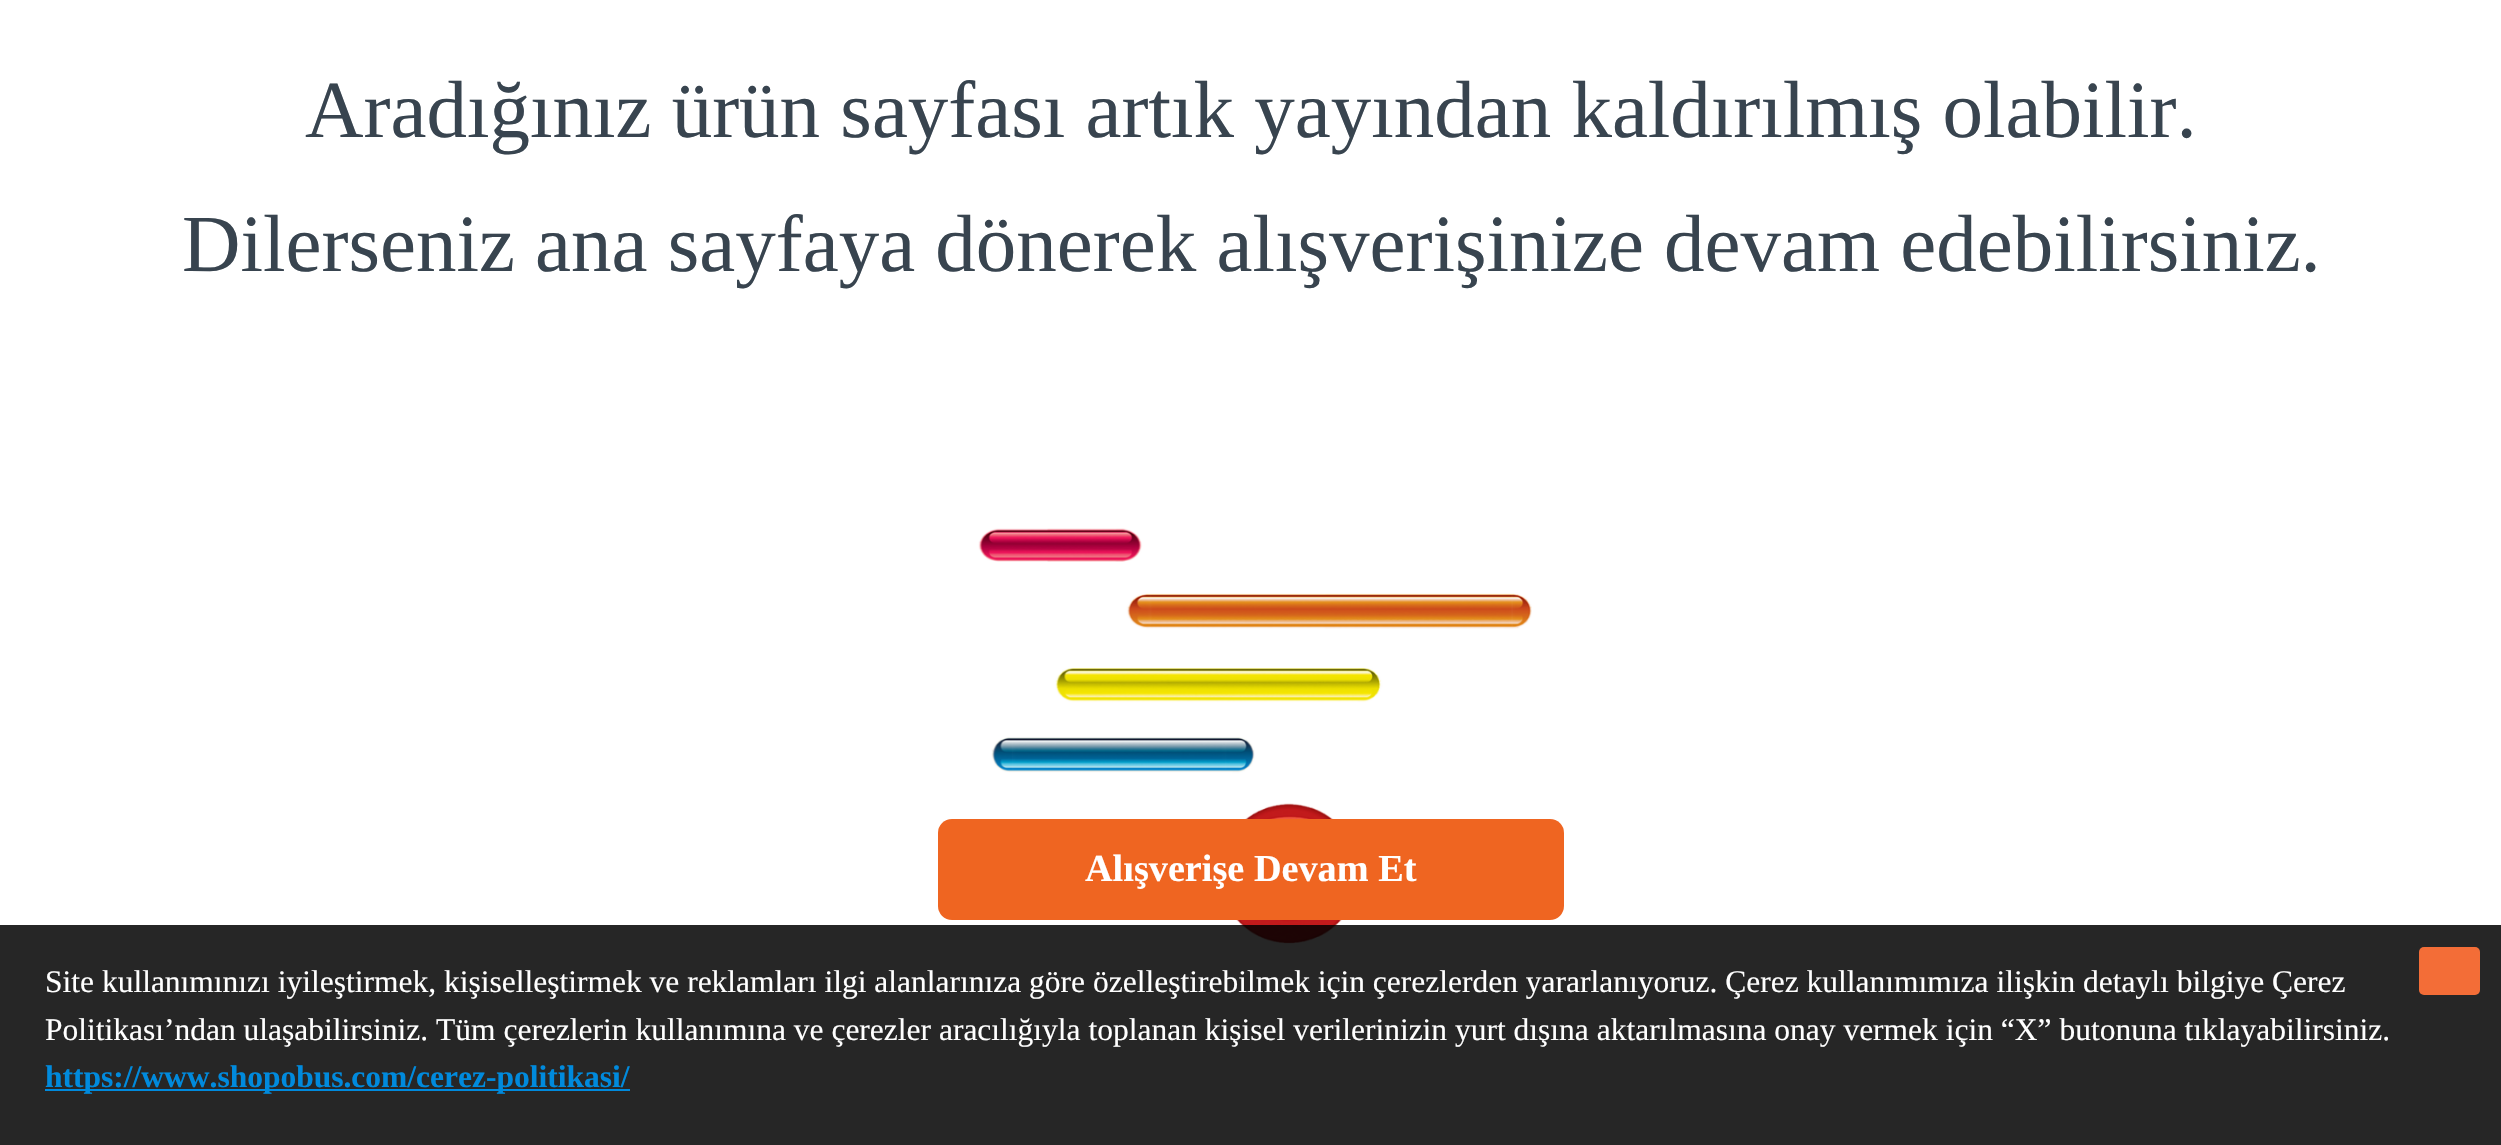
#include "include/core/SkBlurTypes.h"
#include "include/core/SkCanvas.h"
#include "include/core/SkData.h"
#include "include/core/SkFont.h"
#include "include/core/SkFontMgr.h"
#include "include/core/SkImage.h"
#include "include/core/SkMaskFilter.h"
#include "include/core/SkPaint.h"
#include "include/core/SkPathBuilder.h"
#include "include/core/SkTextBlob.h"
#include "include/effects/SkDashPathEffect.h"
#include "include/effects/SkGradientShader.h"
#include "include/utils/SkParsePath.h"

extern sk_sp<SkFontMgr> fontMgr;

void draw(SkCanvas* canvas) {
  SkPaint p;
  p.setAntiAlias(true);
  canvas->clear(SK_ColorWHITE);
  canvas->drawImageRect(SkImages::DeferredFromEncodedData(SkData::MakeFromFileName("images/1.png")), SkRect::MakeLTRB(978, 528, 1532, 944), SkSamplingOptions());
  p.setColor(SkColorSetRGB(239, 101, 33));
  canvas->drawRoundRect(SkRect::MakeLTRB(938, 819, 1564, 920), 14, 14, p);
  p.setColor(SkColorSetARGB(217, 0, 0, 0));
  canvas->drawRect(SkRect::MakeLTRB(0, 925, 2501, 1145), p);
  p.setColor(SkColorSetRGB(0, 138, 221));
  canvas->drawRect(SkRect::MakeLTRB(45, 1089, 630, 1091), p);
  p.setColor(SkColorSetRGB(243, 109, 55));
  canvas->drawRoundRect(SkRect::MakeLTRB(2419, 947, 2480, 995), 5, 5, p);
  SkFont font1(fontMgr->matchFamilyStyle("Liberation Serif", SkFontStyle::Normal()), 81);
  font1.setSubpixel(true);
  p.setColor(SkColorSetRGB(56, 68, 79));
  canvas->drawString("Aradığınız ürün sayfası artık yayından kaldırılmış olabilir.", 305, 137, font1, p);
  canvas->drawString("Dilerseniz ana sayfaya dönerek alışverişinize devam edebilirsiniz.", 182, 271, font1, p);
  SkFont font2(fontMgr->matchFamilyStyle("Liberation Serif", SkFontStyle::Bold()), 38.25f);
  font2.setSubpixel(true);
  p.setColor(SK_ColorWHITE);
  canvas->drawString("Alışverişe Devam Et", 1085, 881, font2, p);
  SkFont font3(fontMgr->matchFamilyStyle("Liberation Serif", SkFontStyle::Normal()), 31.5f);
  font3.setSubpixel(true);
  canvas->drawString("Site kullanımınızı iyileştirmek, kişiselleştirmek ve reklamları ilgi alanlarınıza göre özelleştirebilmek için çerezlerden yararlanıyoruz. Çerez kullanımımıza ilişkin detaylı bilgiye Çerez", 45, 992, font3, p);
  canvas->drawString("Politikası’ndan ulaşabilirsiniz. Tüm çerezlerin kullanımına ve çerezler aracılığıyla toplanan kişisel verilerinizin yurt dışına aktarılmasına onay vermek için “X” butonuna tıklayabilirsiniz.", 45, 1040, font3, p);
  SkFont font4(fontMgr->matchFamilyStyle("Liberation Serif", SkFontStyle::Bold()), 31.5f);
  font4.setSubpixel(true);
  p.setColor(SkColorSetRGB(0, 138, 221));
  canvas->drawString("https://www.shopobus.com/cerez-politikasi/", 45, 1087, font4, p);
}
